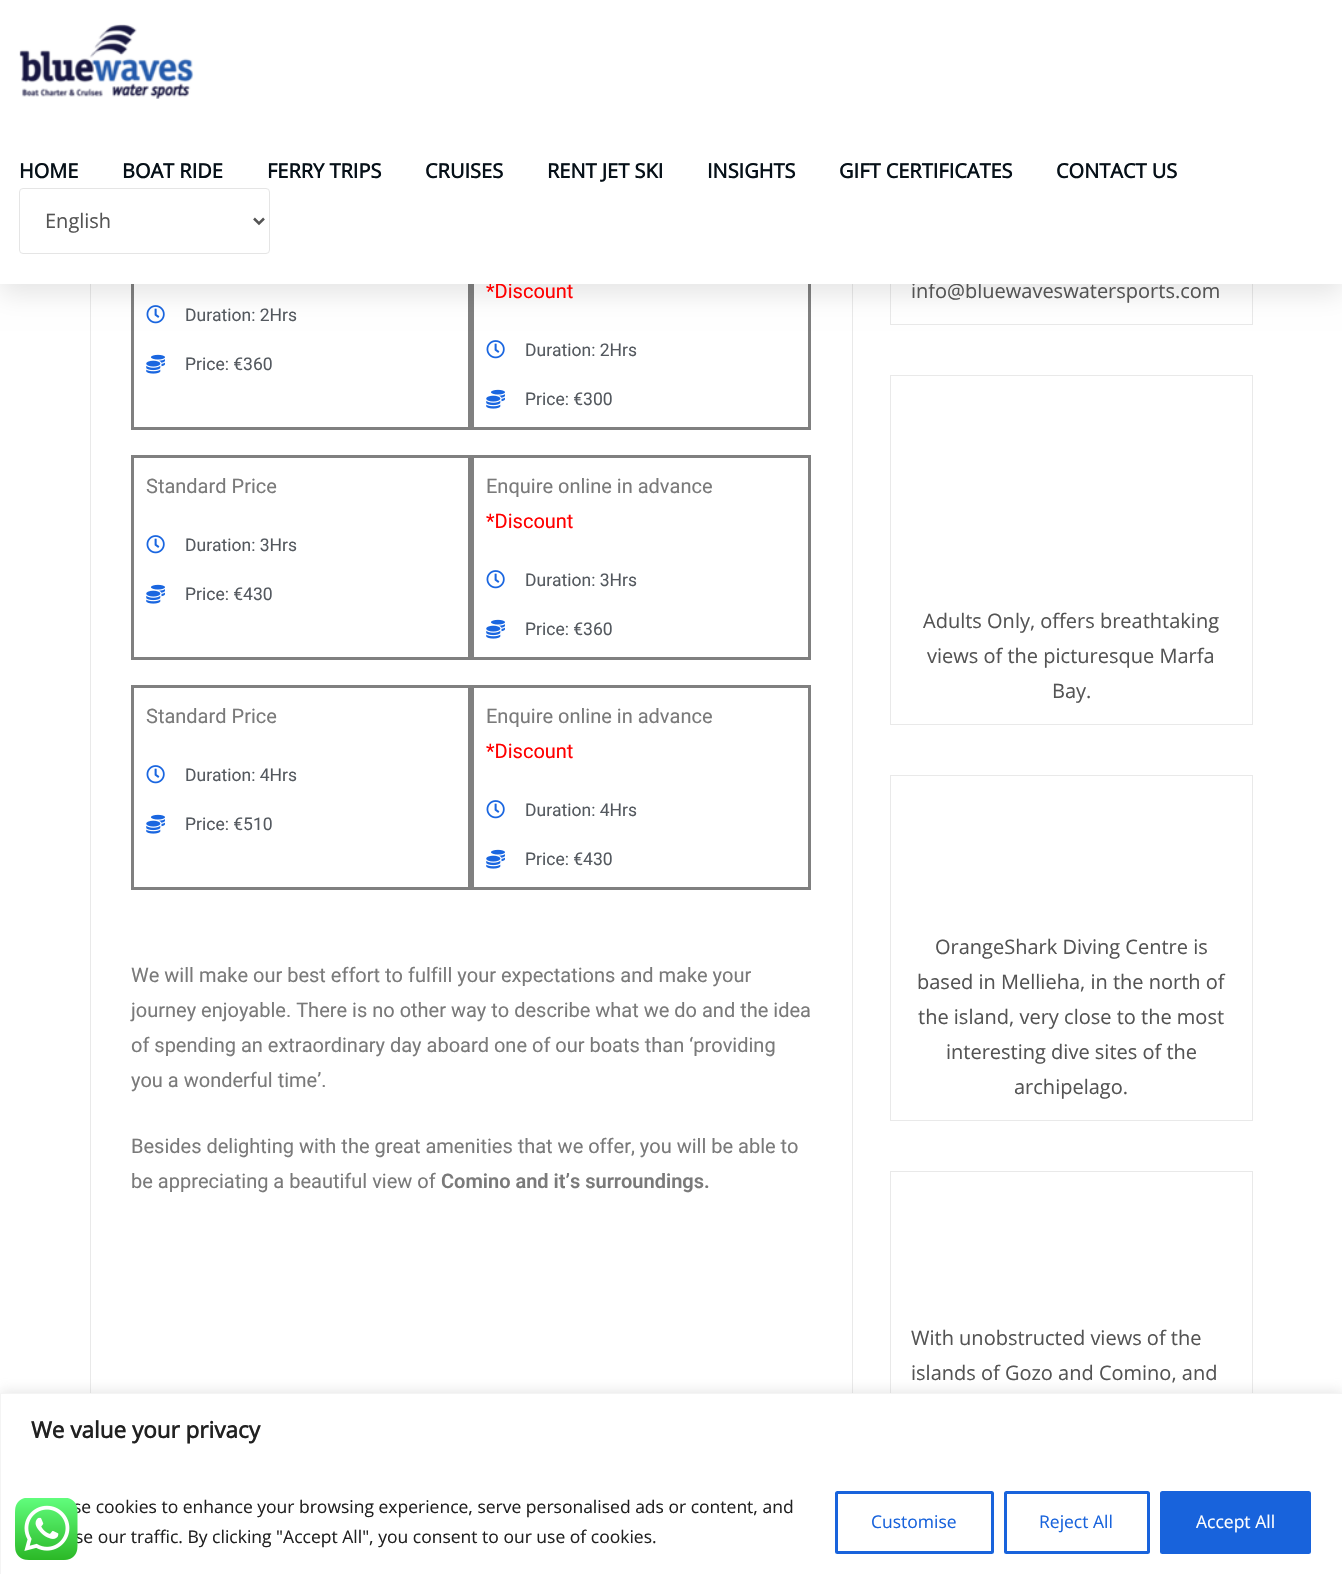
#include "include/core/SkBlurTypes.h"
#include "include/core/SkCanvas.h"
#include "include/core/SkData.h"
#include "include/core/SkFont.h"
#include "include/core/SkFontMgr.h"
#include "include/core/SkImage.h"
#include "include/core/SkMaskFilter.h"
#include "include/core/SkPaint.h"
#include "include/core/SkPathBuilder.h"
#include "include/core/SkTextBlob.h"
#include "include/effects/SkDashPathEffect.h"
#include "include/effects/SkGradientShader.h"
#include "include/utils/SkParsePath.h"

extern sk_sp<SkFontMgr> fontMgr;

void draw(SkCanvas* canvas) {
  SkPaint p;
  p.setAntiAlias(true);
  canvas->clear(SK_ColorWHITE);
  p.setStyle(SkPaint::kStroke_Style);
  p.setStrokeWidth(1);
  p.setColor(SkColorSetRGB(233, 233, 233));
  canvas->drawRect(SkRect::MakeLTRB(90.5f, -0.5f, 852.5f, 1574.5f), p);
  p.setStrokeWidth(3);
  p.setColor(SkColorSetRGB(128, 128, 128));
  canvas->drawRect(SkRect::MakeLTRB(132.5f, 226.5f, 469.5f, 428.5f), p);
  canvas->drawImageRect(SkImages::DeferredFromEncodedData(SkData::MakeFromFileName("images/2.png")), SkRect::MakeLTRB(146, 305, 165, 324), SkSamplingOptions());
  canvas->drawRect(SkRect::MakeLTRB(472.5f, 226.5f, 809.5f, 428.5f), p);
  p.setStrokeWidth(1);
  p.setColor(SkColorSetRGB(233, 233, 233));
  canvas->drawRect(SkRect::MakeLTRB(890.5f, -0.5f, 1252.5f, 324.5f), p);
  p.setStyle(SkPaint::kFill_Style);
  p.setColor(SkColorSetARGB(26, 0, 0, 0));
  p.setMaskFilter(SkMaskFilter::MakeBlur(kNormal_SkBlurStyle, 12.5f));
  canvas->drawRect(SkRect::MakeLTRB(0, 10, 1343, 294), p);
  p.setMaskFilter(nullptr);
  canvas->drawImageRect(SkImages::DeferredFromEncodedData(SkData::MakeFromFileName("images/3.png")), SkRect::MakeLTRB(146, 354, 165, 374), SkSamplingOptions());
  canvas->drawImageRect(SkImages::DeferredFromEncodedData(SkData::MakeFromFileName("images/2.png")), SkRect::MakeLTRB(486, 340, 505, 359), SkSamplingOptions());
  canvas->drawImageRect(SkImages::DeferredFromEncodedData(SkData::MakeFromFileName("images/3.png")), SkRect::MakeLTRB(486, 389, 505, 409), SkSamplingOptions());
  p.setStyle(SkPaint::kStroke_Style);
  p.setStrokeWidth(3);
  p.setColor(SkColorSetRGB(128, 128, 128));
  canvas->drawRect(SkRect::MakeLTRB(132.5f, 456.5f, 469.5f, 658.5f), p);
  canvas->drawImageRect(SkImages::DeferredFromEncodedData(SkData::MakeFromFileName("images/2.png")), SkRect::MakeLTRB(146, 535, 165, 554), SkSamplingOptions());
  canvas->drawImageRect(SkImages::DeferredFromEncodedData(SkData::MakeFromFileName("images/3.png")), SkRect::MakeLTRB(146, 584, 165, 604), SkSamplingOptions());
  canvas->drawRect(SkRect::MakeLTRB(472.5f, 456.5f, 809.5f, 658.5f), p);
  canvas->drawImageRect(SkImages::DeferredFromEncodedData(SkData::MakeFromFileName("images/2.png")), SkRect::MakeLTRB(486, 570, 505, 589), SkSamplingOptions());
  canvas->drawImageRect(SkImages::DeferredFromEncodedData(SkData::MakeFromFileName("images/3.png")), SkRect::MakeLTRB(486, 619, 505, 639), SkSamplingOptions());
  canvas->drawRect(SkRect::MakeLTRB(132.5f, 686.5f, 469.5f, 888.5f), p);
  canvas->drawImageRect(SkImages::DeferredFromEncodedData(SkData::MakeFromFileName("images/2.png")), SkRect::MakeLTRB(146, 765, 165, 784), SkSamplingOptions());
  canvas->drawImageRect(SkImages::DeferredFromEncodedData(SkData::MakeFromFileName("images/3.png")), SkRect::MakeLTRB(146, 814, 165, 834), SkSamplingOptions());
  canvas->drawRect(SkRect::MakeLTRB(472.5f, 686.5f, 809.5f, 888.5f), p);
  canvas->drawImageRect(SkImages::DeferredFromEncodedData(SkData::MakeFromFileName("images/2.png")), SkRect::MakeLTRB(486, 800, 505, 819), SkSamplingOptions());
  canvas->drawImageRect(SkImages::DeferredFromEncodedData(SkData::MakeFromFileName("images/3.png")), SkRect::MakeLTRB(486, 849, 505, 869), SkSamplingOptions());
  p.setStrokeWidth(1);
  p.setColor(SkColorSetRGB(233, 233, 233));
  canvas->drawRect(SkRect::MakeLTRB(890.5f, 375.5f, 1252.5f, 724.5f), p);
  canvas->drawRect(SkRect::MakeLTRB(890.5f, 775.5f, 1252.5f, 1120.5f), p);
  canvas->drawRect(SkRect::MakeLTRB(890.5f, 1171.5f, 1252.5f, 1512.5f), p);
  p.setStyle(SkPaint::kFill_Style);
  p.setColor(SkColorSetARGB(77, 172, 171, 171));
  p.setMaskFilter(SkMaskFilter::MakeBlur(kNormal_SkBlurStyle, 6));
  canvas->drawRect(SkRect::MakeLTRB(0, 1391, 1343, 1574), p);
  p.setMaskFilter(nullptr);
  p.setColor(SK_ColorWHITE);
  canvas->drawRect(SkRect::MakeLTRB(0.5f, 1393.5f, 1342.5f, 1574.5f), p);
  p.setStyle(SkPaint::kStroke_Style);
  p.setColor(SkColorSetRGB(244, 244, 244));
  canvas->drawRect(SkRect::MakeLTRB(0.5f, 1393.5f, 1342.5f, 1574.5f), p);
  p.setStrokeWidth(3);
  p.setColor(SkColorSetRGB(24, 99, 220));
  canvas->drawRoundRect(SkRect::MakeLTRB(836.5f, 1492.5f, 992.5f, 1552.5f), 1, 1, p);
  canvas->drawRoundRect(SkRect::MakeLTRB(1005.5f, 1492.5f, 1148.5f, 1552.5f), 1, 1, p);
  p.setStyle(SkPaint::kFill_Style);
  canvas->drawRoundRect(SkRect::MakeLTRB(1161.5f, 1492.5f, 1309.5f, 1552.5f), 1, 1, p);
  p.setStyle(SkPaint::kStroke_Style);
  canvas->drawRoundRect(SkRect::MakeLTRB(1161.5f, 1492.5f, 1309.5f, 1552.5f), 1, 1, p);
  SkFont font1(fontMgr->matchFamilyStyle("Roboto", SkFontStyle::Normal()), 17.5f);
  font1.setSubpixel(true);
  p.setStyle(SkPaint::kFill_Style);
  p.setColor(SkColorSetRGB(84, 89, 95));
  canvas->drawString("Duration: 2Hrs", 185, 321, font1, p);
  canvas->drawString("Price: €360", 185, 370, font1, p);
  SkFont font2(fontMgr->matchFamilyStyle("Roboto", SkFontStyle::Normal()), 20);
  font2.setSubpixel(true);
  p.setColor(SkColorSetRGB(255, 0, 0));
  canvas->drawString("*Discount", 486, 298, font2, p);
  p.setColor(SkColorSetRGB(84, 89, 95));
  canvas->drawString("Duration: 2Hrs", 525, 356, font1, p);
  canvas->drawString("Price: €300", 525, 405, font1, p);
  p.setColor(SkColorSetRGB(122, 122, 122));
  canvas->drawString("Standard Price", 146, 493, font2, p);
  p.setColor(SkColorSetRGB(84, 89, 95));
  canvas->drawString("Duration: 3Hrs", 185, 551, font1, p);
  canvas->drawString("Price: €430", 185, 600, font1, p);
  p.setColor(SkColorSetRGB(122, 122, 122));
  canvas->drawString("Enquire online in advance", 486, 493, font2, p);
  p.setColor(SkColorSetRGB(255, 0, 0));
  canvas->drawString("*Discount", 486, 528, font2, p);
  p.setColor(SkColorSetRGB(84, 89, 95));
  canvas->drawString("Duration: 3Hrs", 525, 586, font1, p);
  canvas->drawString("Price: €360", 525, 635, font1, p);
  p.setColor(SkColorSetRGB(122, 122, 122));
  canvas->drawString("Standard Price", 146, 723, font2, p);
  p.setColor(SkColorSetRGB(84, 89, 95));
  canvas->drawString("Duration: 4Hrs", 185, 781, font1, p);
  canvas->drawString("Price: €510", 185, 830, font1, p);
  p.setColor(SkColorSetRGB(122, 122, 122));
  canvas->drawString("Enquire online in advance", 486, 723, font2, p);
  p.setColor(SkColorSetRGB(255, 0, 0));
  canvas->drawString("*Discount", 486, 758, font2, p);
  p.setColor(SkColorSetRGB(84, 89, 95));
  canvas->drawString("Duration: 4Hrs", 525, 816, font1, p);
  canvas->drawString("Price: €430", 525, 865, font1, p);
  p.setColor(SkColorSetRGB(122, 122, 122));
  canvas->drawString("We will make our best effort to fulfill your expectations and make your", 131, 982, font2, p);
  canvas->drawString("journey enjoyable. There is no other way to describe what we do and the idea", 131, 1017, font2, p);
  canvas->drawString("of spending an extraordinary day aboard one of our boats than ‘providing", 131, 1052, font2, p);
  canvas->drawString("you a wonderful time’.", 131, 1087, font2, p);
  canvas->drawString("Besides delighting with the great amenities that we offer, you will be able to", 131, 1153, font2, p);
  canvas->drawString("be appreciating a beautiful view of", 131, 1188, font2, p);
  SkFont font3(fontMgr->matchFamilyStyle("Roboto", SkFontStyle(600, SkFontStyle::kNormal_Width, SkFontStyle::kUpright_Slant)), 20);
  font3.setSubpixel(true);
  canvas->drawString("Comino and it’s surroundings.", 441, 1188, font3, p);
  SkFont font4(fontMgr->matchFamilyStyle("Open Sans", SkFontStyle::Normal()), 20);
  font4.setSubpixel(true);
  p.setColor(SkColorSetRGB(84, 84, 84));
  canvas->drawString("info@bluewaveswatersports.com", 911, 298, font4, p);
  p.setColor(SK_ColorWHITE);
  canvas->drawRect(SkRect::MakeLTRB(0, 0, 1342, 284), p);
  p.setStyle(SkPaint::kStroke_Style);
  p.setStrokeWidth(1);
  p.setColor(SkColorSetRGB(229, 229, 229));
  canvas->drawRoundRect(SkRect::MakeLTRB(19.5f, 188.5f, 269.5f, 253.5f), 3.5f, 3.5f, p);
  p.setStyle(SkPaint::kFill_Style);
  p.setColor(SkColorSetRGB(84, 84, 84));
  canvas->drawString("English", 45, 228, font4, p);
  p.setStyle(SkPaint::kStroke_Style);
  p.setStrokeWidth(2.5f);
  canvas->drawPath(SkPathBuilder().moveTo(254, 218.5f).lineTo(259, 223.5f).lineTo(264, 218.5f).detach(), p);
  SkFont font5(fontMgr->matchFamilyStyle("Open Sans", SkFontStyle::Bold()), 20);
  font5.setSubpixel(true);
  p.setStyle(SkPaint::kFill_Style);
  p.setColor(SkColorSetRGB(6, 16, 24));
  canvas->drawString("CONTACT US", 1056, 178, font5, p);
  canvas->drawString("GIFT CERTIFICATES", 839, 178, font5, p);
  canvas->drawString("INSIGHTS", 707, 178, font5, p);
  canvas->drawString("RENT JET SKI", 547, 178, font5, p);
  canvas->drawString("CRUISES", 425, 178, font5, p);
  canvas->drawString("FERRY TRIPS", 267, 178, font5, p);
  canvas->drawString("BOAT RIDE", 122, 178, font5, p);
  canvas->drawString("HOME", 19, 178, font5, p);
  canvas->drawImageRect(SkImages::DeferredFromEncodedData(SkData::MakeFromFileName("images/1.png")), SkRect::MakeLTRB(19, 24, 194, 99), SkSamplingOptions());
  p.setColor(SkColorSetRGB(84, 84, 84));
  canvas->drawString("Adults Only, offers breathtaking", 923, 628, font4, p);
  canvas->drawString("views of the picturesque Marfa", 927, 663, font4, p);
  canvas->drawString("Bay.", 1052, 698, font4, p);
  canvas->drawString("OrangeShark Diving Centre is", 935, 954, font4, p);
  canvas->drawString("based in Mellieha, in the north of", 917, 989, font4, p);
  canvas->drawString("the island, very close to the most", 918, 1024, font4, p);
  canvas->drawString("interesting dive sites of the", 946, 1059, font4, p);
  canvas->drawString("archipelago.", 1014, 1094, font4, p);
  canvas->drawString("With unobstructed views of the", 911, 1345, font4, p);
  canvas->drawString("islands of Gozo and Comino, and", 911, 1380, font4, p);
  SkFont font6(fontMgr->matchFamilyStyle("Open Sans", SkFontStyle::Bold()), 22.5f);
  font6.setSubpixel(true);
  p.setColor(SkColorSetRGB(33, 33, 33));
  canvas->drawString("We value your privacy", 31, 1438, font6, p);
  SkFont font7(fontMgr->matchFamilyStyle("Open Sans", SkFontStyle::Normal()), 17.5f);
  font7.setSubpixel(true);
  canvas->drawString("se cookies to enhance your browsing experience, serve personalised ads or content, and", 73, 1513, font7, p);
  canvas->drawString("se our traffic. By clicking \"Accept All\", you consent to our use of cookies.", 75, 1543, font7, p);
  canvas->drawImageRect(SkImages::DeferredFromEncodedData(SkData::MakeFromFileName("images/4.png")), SkRect::MakeLTRB(15, 1498, 78, 1560), SkSamplingOptions());
  p.setColor(SkColorSetRGB(24, 99, 220));
  canvas->drawString("Customise", 871, 1528, font7, p);
  canvas->drawString("Reject All", 1039, 1528, font7, p);
  p.setColor(SK_ColorWHITE);
  canvas->drawString("Accept All", 1196, 1528, font7, p);
}
